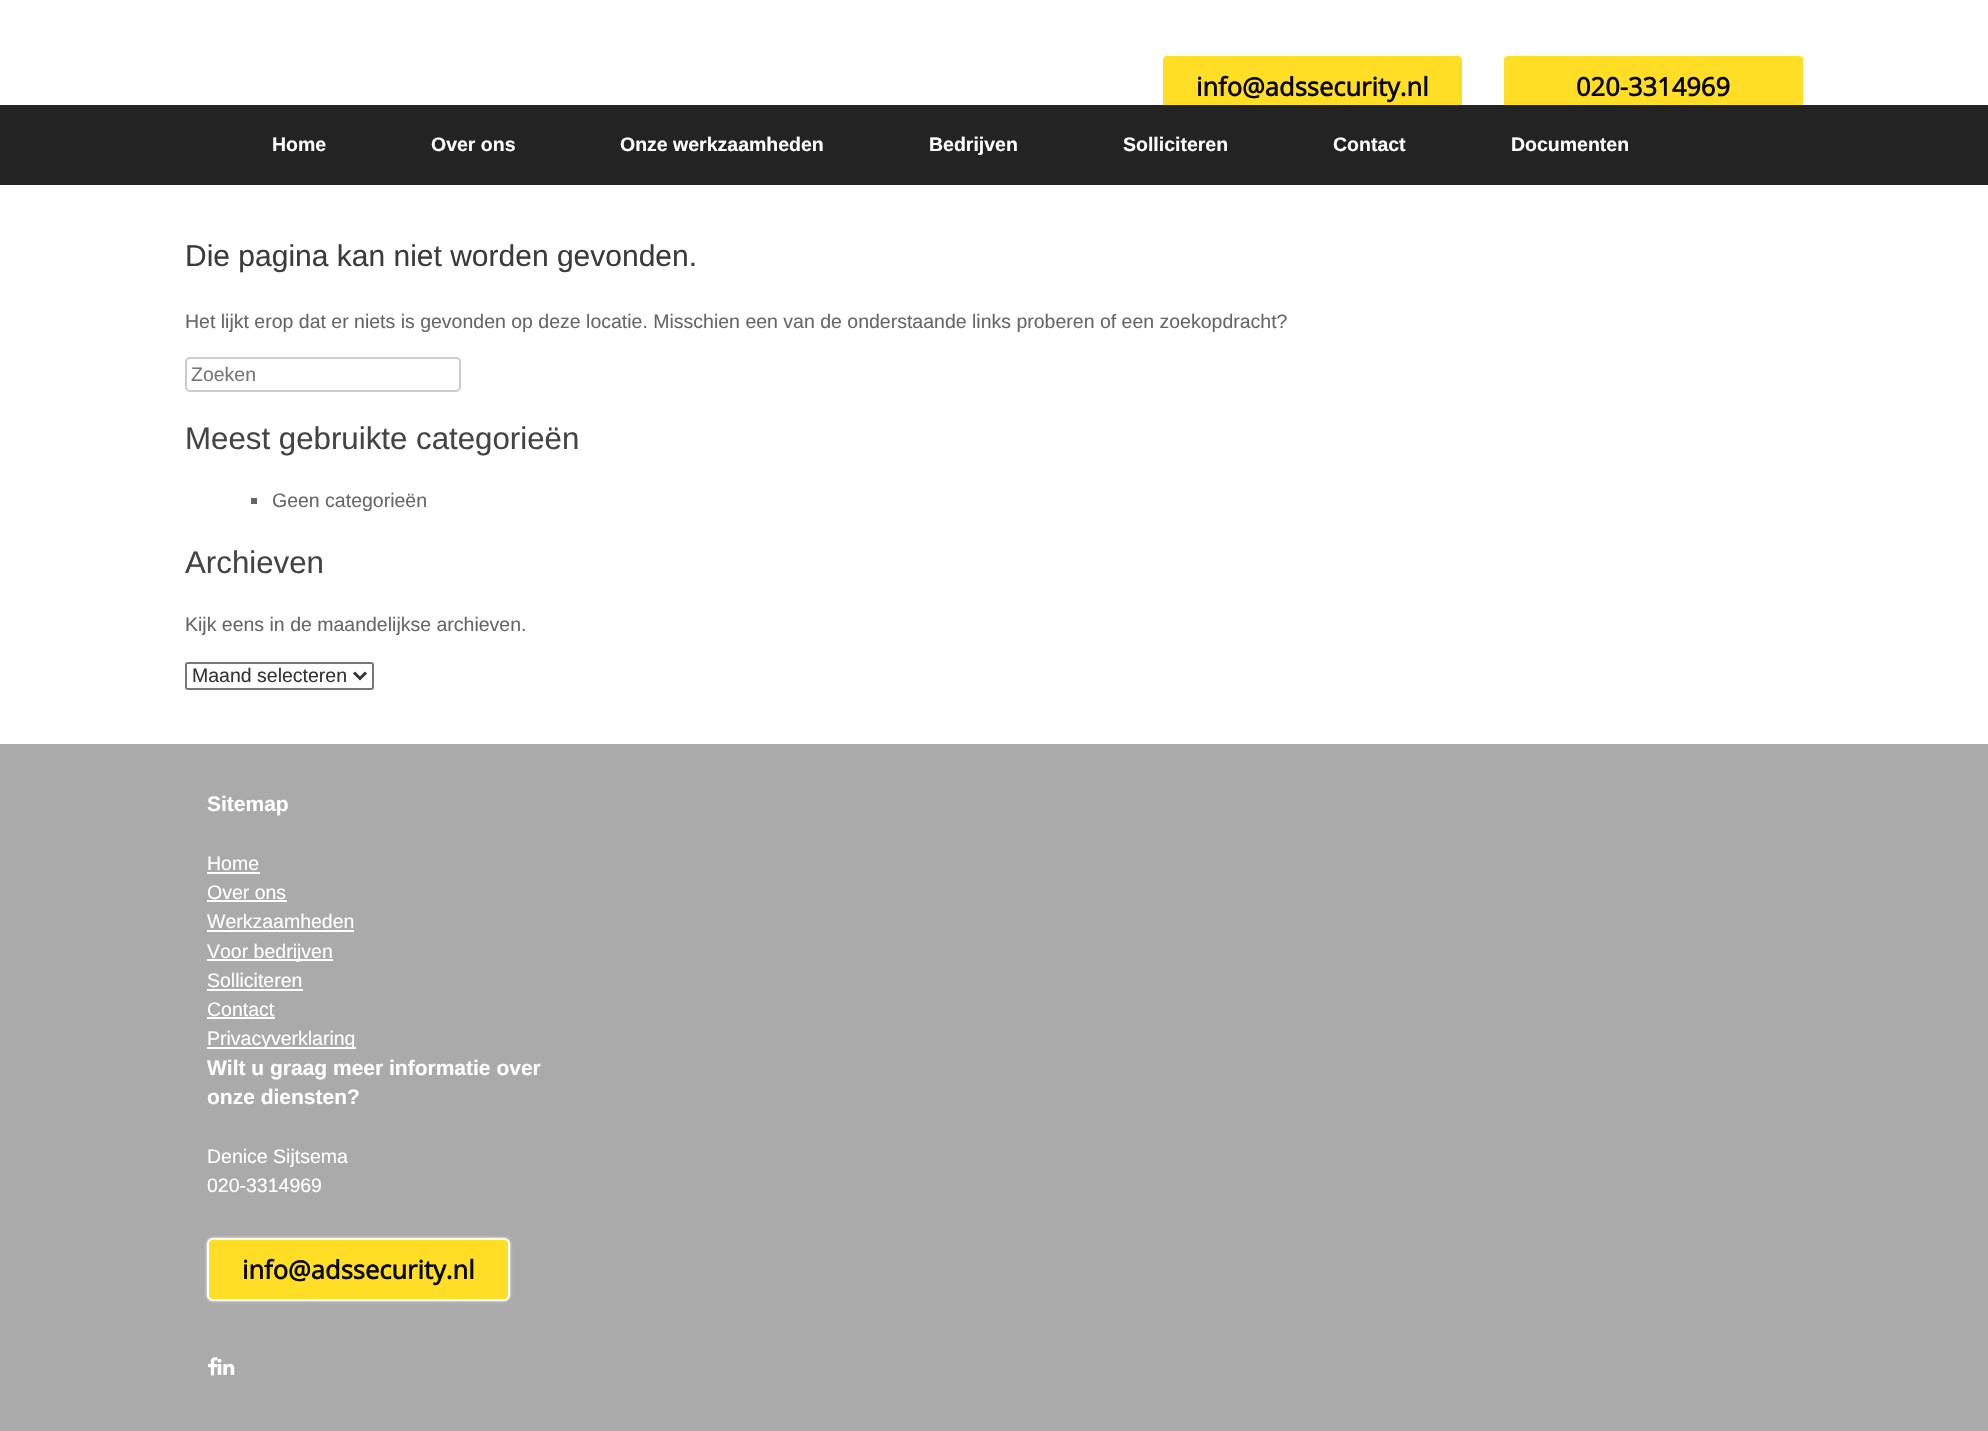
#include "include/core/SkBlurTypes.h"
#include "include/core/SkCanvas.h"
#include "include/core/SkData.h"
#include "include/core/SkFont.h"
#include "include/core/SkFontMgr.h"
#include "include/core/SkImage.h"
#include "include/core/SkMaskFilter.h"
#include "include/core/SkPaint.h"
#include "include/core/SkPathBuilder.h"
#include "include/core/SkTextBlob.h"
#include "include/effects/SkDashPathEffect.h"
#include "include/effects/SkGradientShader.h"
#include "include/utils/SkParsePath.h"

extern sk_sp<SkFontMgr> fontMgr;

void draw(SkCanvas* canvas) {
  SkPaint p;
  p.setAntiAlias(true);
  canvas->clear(SkColorSetRGB(170, 170, 170));
  p.setColor(SK_ColorWHITE);
  canvas->drawRect(SkRect::MakeLTRB(0, 0, 1988, 105), p);
  p.setColor(SkColorSetRGB(255, 222, 37));
  canvas->drawRoundRect(SkRect::MakeLTRB(1162, 55, 1463, 116), 5, 5, p);
  p.setStyle(SkPaint::kStroke_Style);
  p.setStrokeWidth(2);
  p.setColor(SK_ColorWHITE);
  canvas->drawRoundRect(SkRect::MakeLTRB(1162, 55, 1463, 116), 5, 5, p);
  p.setStyle(SkPaint::kFill_Style);
  p.setColor(SkColorSetRGB(255, 222, 37));
  canvas->drawRoundRect(SkRect::MakeLTRB(1503, 55, 1804, 116), 5, 5, p);
  p.setStyle(SkPaint::kStroke_Style);
  p.setColor(SK_ColorWHITE);
  canvas->drawRoundRect(SkRect::MakeLTRB(1503, 55, 1804, 116), 5, 5, p);
  p.setStyle(SkPaint::kFill_Style);
  p.setColor(SkColorSetRGB(35, 35, 35));
  canvas->drawRect(SkRect::MakeLTRB(0, 105, 1988, 185), p);
  p.setColor(SK_ColorWHITE);
  canvas->drawRect(SkRect::MakeLTRB(0, 185, 1988, 744), p);
  p.setStyle(SkPaint::kStroke_Style);
  p.setColor(SkColorSetRGB(204, 204, 204));
  canvas->drawRoundRect(SkRect::MakeLTRB(186, 358, 460, 391), 4, 4, p);
  p.setStyle(SkPaint::kFill_Style);
  p.setColor(SkColorSetRGB(102, 102, 102));
  canvas->drawRect(SkRect::MakeLTRB(251, 498, 257, 504), p);
  p.setStyle(SkPaint::kStroke_Style);
  p.setColor(SkColorSetRGB(118, 118, 118));
  canvas->drawRoundRect(SkRect::MakeLTRB(186, 663, 373, 689), 2, 2, p);
  p.setStrokeWidth(3);
  p.setColor(SkColorSetRGB(51, 51, 51));
  canvas->drawPath(SkPathBuilder().moveTo(354, 672.5f).lineTo(360, 678.5f).lineTo(366, 672.5f).detach(), p);
  p.setStyle(SkPaint::kFill_Style);
  p.setColor(SK_ColorWHITE);
  canvas->drawRect(SkRect::MakeLTRB(207, 872, 260, 874), p);
  canvas->drawRect(SkRect::MakeLTRB(207, 900, 287, 902), p);
  canvas->drawRect(SkRect::MakeLTRB(207, 930, 354, 932), p);
  canvas->drawRect(SkRect::MakeLTRB(207, 959, 333, 961), p);
  canvas->drawRect(SkRect::MakeLTRB(207, 989, 303, 991), p);
  canvas->drawRect(SkRect::MakeLTRB(207, 1017, 275, 1019), p);
  canvas->drawRect(SkRect::MakeLTRB(207, 1047, 356, 1049), p);
  p.setMaskFilter(SkMaskFilter::MakeBlur(kNormal_SkBlurStyle, 1.5f));
  canvas->drawRoundRect(SkRect::MakeLTRB(207, 1238, 510, 1301), 6, 6, p);
  p.setMaskFilter(nullptr);
  p.setColor(SkColorSetRGB(255, 222, 37));
  canvas->drawRoundRect(SkRect::MakeLTRB(208, 1239, 509, 1300), 5, 5, p);
  p.setStyle(SkPaint::kStroke_Style);
  p.setStrokeWidth(2);
  p.setColor(SK_ColorWHITE);
  canvas->drawRoundRect(SkRect::MakeLTRB(208, 1239, 509, 1300), 5, 5, p);
  canvas->drawImageRect(SkImages::DeferredFromEncodedData(SkData::MakeFromFileName("images/1.png")), SkRect::MakeLTRB(208, 1357, 218, 1376), SkSamplingOptions());
  canvas->drawImageRect(SkImages::DeferredFromEncodedData(SkData::MakeFromFileName("images/2.png")), SkRect::MakeLTRB(217, 1358, 235, 1375), SkSamplingOptions());
  SkFont font1(fontMgr->matchFamilyStyle("Open Sans", SkFontStyle::Bold()), 25.5f);
  font1.setSubpixel(true);
  p.setStyle(SkPaint::kFill_Style);
  p.setColor(SkColorSetRGB(8, 8, 8));
  canvas->drawString("info@adssecurity.nl", 1196, 96, font1, p);
  canvas->drawString("020-3314969", 1576, 96, font1, p);
  SkFont font2(fontMgr->matchFamilyStyle("Liberation Sans", SkFontStyle::Bold()), 19.5f);
  font2.setSubpixel(true);
  p.setColor(SK_ColorWHITE);
  canvas->drawString("Home", 272, 151, font2, p);
  canvas->drawString("Over ons", 431, 151, font2, p);
  canvas->drawString("Onze werkzaamheden", 620, 151, font2, p);
  canvas->drawString("Bedrijven", 929, 151, font2, p);
  canvas->drawString("Solliciteren", 1123, 151, font2, p);
  canvas->drawString("Contact", 1333, 151, font2, p);
  canvas->drawString("Documenten", 1511, 151, font2, p);
  SkFont font3(fontMgr->matchFamilyStyle("Liberation Sans", SkFontStyle::Normal()), 30);
  font3.setSubpixel(true);
  p.setColor(SkColorSetRGB(59, 59, 59));
  canvas->drawString("Die pagina kan niet worden gevonden.", 185, 266, font3, p);
  SkFont font4(fontMgr->matchFamilyStyle("Liberation Sans", SkFontStyle::Normal()), 19.5f);
  font4.setSubpixel(true);
  p.setColor(SkColorSetRGB(102, 102, 102));
  canvas->drawString("Het lijkt erop dat er niets is gevonden op deze locatie. Misschien een van de onderstaande links proberen of een zoekopdracht?", 185, 328, font4, p);
  p.setColor(SkColorSetRGB(117, 117, 117));
  canvas->drawString("Zoeken", 191, 381, font4, p);
  SkFont font5(fontMgr->matchFamilyStyle("Liberation Sans", SkFontStyle::Normal()), 31.25f);
  font5.setSubpixel(true);
  p.setColor(SkColorSetRGB(68, 68, 68));
  canvas->drawString("Meest gebruikte categorieën", 185, 449, font5, p);
  p.setColor(SkColorSetRGB(102, 102, 102));
  canvas->drawString("Geen categorieën", 272, 507, font4, p);
  p.setColor(SkColorSetRGB(68, 68, 68));
  canvas->drawString("Archieven", 185, 573, font5, p);
  p.setColor(SkColorSetRGB(102, 102, 102));
  canvas->drawString("Kijk eens in de maandelijkse archieven.", 185, 631, font4, p);
  p.setColor(SkColorSetRGB(51, 51, 51));
  canvas->drawString("Maand selecteren", 192, 682, font4, p);
  SkFont font6(fontMgr->matchFamilyStyle("Liberation Sans", SkFontStyle::Bold()), 21);
  font6.setSubpixel(true);
  p.setColor(SK_ColorWHITE);
  canvas->drawString("Sitemap", 207, 811, font6, p);
  canvas->drawString("Home", 207, 870, font4, p);
  canvas->drawString("Over ons", 207, 899, font4, p);
  canvas->drawString("Werkzaamheden", 207, 928, font4, p);
  canvas->drawString("Voor bedrijven", 207, 958, font4, p);
  canvas->drawString("Solliciteren", 207, 987, font4, p);
  canvas->drawString("Contact", 207, 1016, font4, p);
  canvas->drawString("Privacyverklaring", 207, 1045, font4, p);
  canvas->drawString("Wilt u graag meer informatie over", 207, 1075, font6, p);
  canvas->drawString("onze diensten?", 207, 1104, font6, p);
  canvas->drawString("Denice Sijtsema", 207, 1163, font4, p);
  canvas->drawString("020-3314969", 207, 1192, font4, p);
  p.setColor(SkColorSetRGB(8, 8, 8));
  canvas->drawString("info@adssecurity.nl", 242, 1279, font1, p);
}
